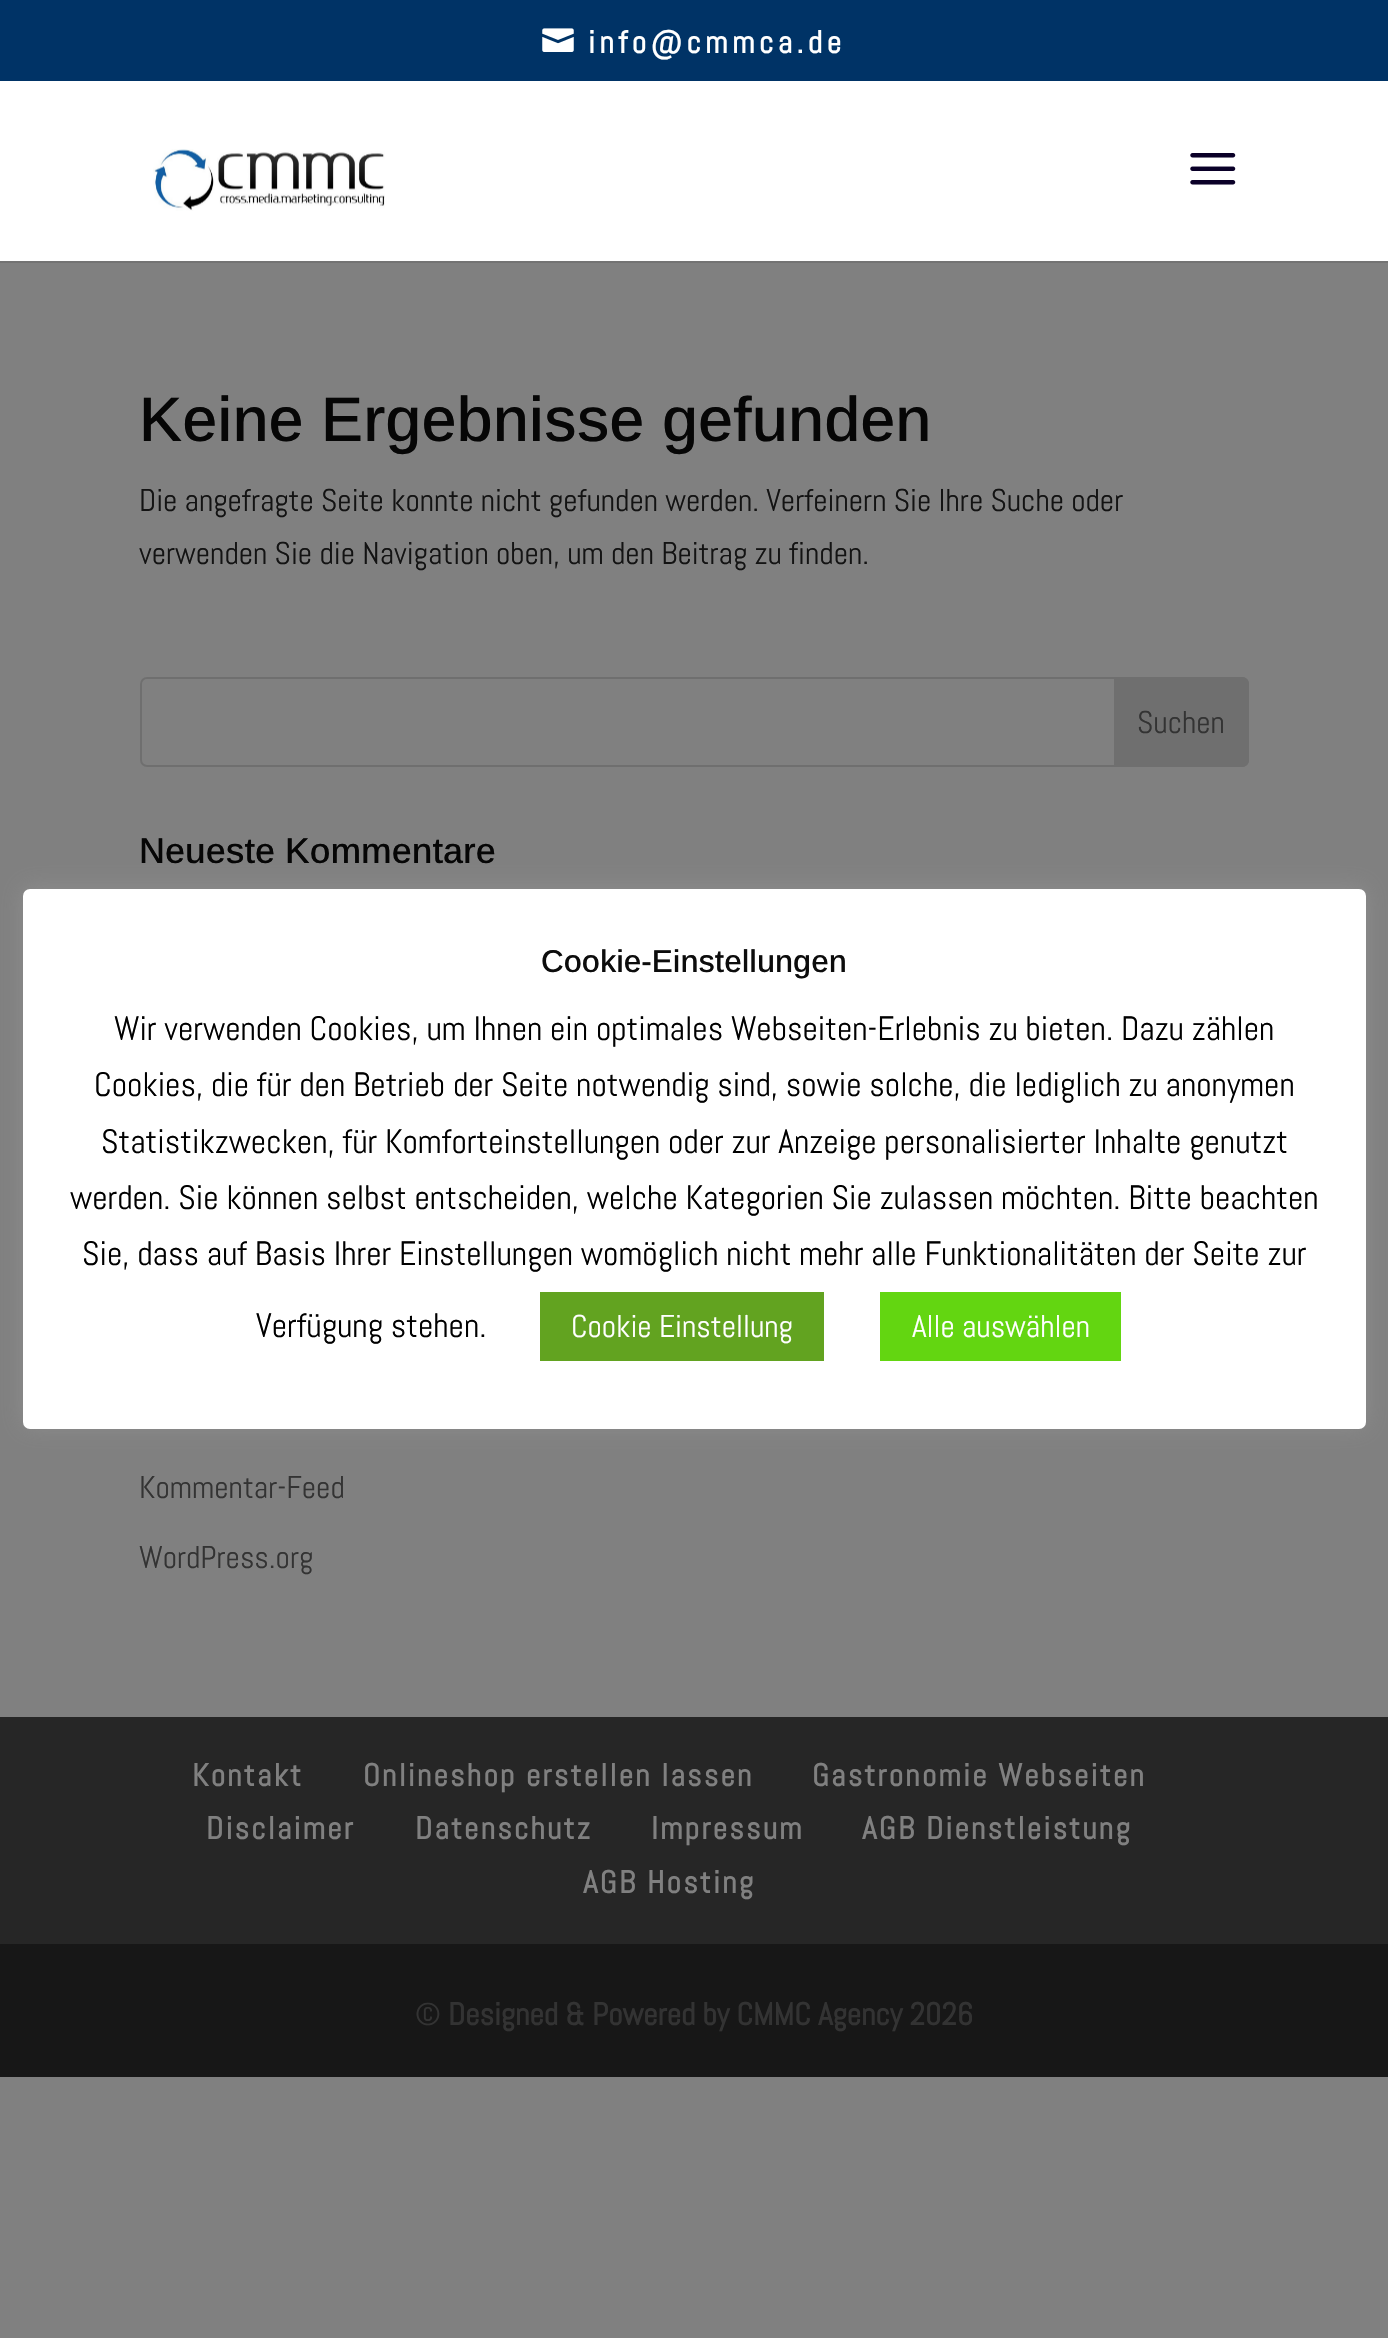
#include "include/core/SkBlurTypes.h"
#include "include/core/SkCanvas.h"
#include "include/core/SkData.h"
#include "include/core/SkFont.h"
#include "include/core/SkFontMgr.h"
#include "include/core/SkImage.h"
#include "include/core/SkMaskFilter.h"
#include "include/core/SkPaint.h"
#include "include/core/SkPathBuilder.h"
#include "include/core/SkTextBlob.h"
#include "include/effects/SkDashPathEffect.h"
#include "include/effects/SkGradientShader.h"
#include "include/utils/SkParsePath.h"

extern sk_sp<SkFontMgr> fontMgr;

void draw(SkCanvas* canvas) {
  SkPaint p;
  p.setAntiAlias(true);
  auto spacedText = [&](const char* s, float x, float y, const SkFont& font, const SkPaint& ink, float letter, float word) {
    std::vector<SkGlyphID> glyphs(font.countText(s, strlen(s), SkTextEncoding::kUTF8));
    std::vector<float> xs(glyphs.size());
    font.textToGlyphs(s, strlen(s), SkTextEncoding::kUTF8, glyphs);
    font.getXPos(glyphs, xs, x);
    float extra = 0;
    for (size_t i = 0; i < glyphs.size(); i++) {
      xs[i] += extra;
      extra += letter + word * (glyphs[i] == font.unicharToGlyph(' '));
    }
    canvas->drawTextBlob(SkTextBlob::MakeFromPosHGlyphs(glyphs, xs, y, font), 0, 0, ink);
  };
  canvas->clear(SkColorSetRGB(128, 128, 128));
  p.setColor(SkColorSetRGB(0, 51, 102));
  canvas->drawRect(SkRect::MakeLTRB(0, 0, 1388, 81), p);
  canvas->drawImageRect(SkImages::DeferredFromEncodedData(SkData::MakeFromFileName("images/1.png")), SkRect::MakeLTRB(542, 28, 574, 52), SkSamplingOptions());
  p.setColor(SkColorSetRGB(115, 115, 115));
  canvas->drawRect(SkRect::MakeLTRB(0, 261, 1388, 263), p);
  p.setColor(SK_ColorWHITE);
  canvas->drawRect(SkRect::MakeLTRB(0, 81, 1388, 261), p);
  canvas->drawImageRect(SkImages::DeferredFromEncodedData(SkData::MakeFromFileName("images/2.png")), SkRect::MakeLTRB(153, 149, 385, 211), SkSamplingOptions());
  canvas->drawImageRect(SkImages::DeferredFromEncodedData(SkData::MakeFromFileName("images/3.png")), SkRect::MakeLTRB(1190, 153, 1236, 185), SkSamplingOptions());
  p.setStyle(SkPaint::kStroke_Style);
  p.setStrokeWidth(2);
  p.setColor(SkColorSetRGB(111, 111, 111));
  canvas->drawRoundRect(SkRect::MakeLTRB(141, 678, 1248, 766), 6, 6, p);
  p.setStyle(SkPaint::kFill_Style);
  canvas->drawPath(SkPathBuilder().moveTo(1114, 677).lineTo(1242, 677).cubicTo(1246, 677, 1249, 680, 1249, 684).lineTo(1249, 760).cubicTo(1249, 764, 1246, 767, 1242, 767).lineTo(1114, 767).close().detach(), p);
  p.setColor(SkColorSetRGB(38, 38, 38));
  canvas->drawRect(SkRect::MakeLTRB(0, 1717, 1388, 1944), p);
  p.setColor(SkColorSetRGB(23, 23, 23));
  canvas->drawRect(SkRect::MakeLTRB(0, 1944, 1388, 2077), p);
  p.setColor(SkColorSetARGB(77, 172, 171, 171));
  p.setMaskFilter(SkMaskFilter::MakeBlur(kNormal_SkBlurStyle, 11));
  canvas->drawRoundRect(SkRect::MakeLTRB(23, 887, 1366, 1427), 7, 7, p);
  p.setMaskFilter(nullptr);
  p.setColor(SK_ColorWHITE);
  canvas->drawRoundRect(SkRect::MakeLTRB(23, 889, 1366, 1429), 7, 7, p);
  p.setColor(SkColorSetRGB(98, 163, 32));
  canvas->drawRect(SkRect::MakeLTRB(540, 1292, 824, 1361), p);
  p.setColor(SkColorSetRGB(99, 214, 17));
  canvas->drawRect(SkRect::MakeLTRB(880, 1292, 1121, 1361), p);
  SkFont font1(fontMgr->matchFamilyStyle("Abel", SkFontStyle::Bold()), 31.5f);
  font1.setSubpixel(true);
  p.setColor(SK_ColorWHITE);
  spacedText("info@cmmca.de", 588, 53, font1, p, 4.5f, 0);
  SkFont font2(fontMgr->matchFamilyStyle("Arimo", SkFontStyle(500, SkFontStyle::kNormal_Width, SkFontStyle::kUpright_Slant)), 63);
  font2.setSubpixel(true);
  p.setColor(SkColorSetRGB(6, 6, 6));
  canvas->drawString("Keine Ergebnisse gefunden", 139, 441, font2, p);
  SkFont font3(fontMgr->matchFamilyStyle("Abel", SkFontStyle::Normal()), 31.5f);
  font3.setSubpixel(true);
  p.setColor(SkColorSetRGB(19, 19, 19));
  canvas->drawString("Die angefragte Seite konnte nicht gefunden werden. Verfeinern Sie Ihre Suche oder", 139, 511, font3, p);
  canvas->drawString("verwenden Sie die Navigation oben, um den Beitrag zu finden.", 139, 564, font3, p);
  p.setColor(SkColorSetRGB(51, 51, 51));
  canvas->drawString("Suchen", 1137, 733, font3, p);
  SkFont font4(fontMgr->matchFamilyStyle("Arimo", SkFontStyle(500, SkFontStyle::kNormal_Width, SkFontStyle::kUpright_Slant)), 36);
  font4.setSubpixel(true);
  p.setColor(SkColorSetRGB(6, 6, 6));
  canvas->drawString("Neueste Kommentare", 139, 863, font4, p);
  p.setColor(SkColorSetRGB(51, 51, 51));
  canvas->drawString("Kommentar-Feed", 139, 1498, font3, p);
  canvas->drawString("WordPress.org", 139, 1568, font3, p);
  p.setColor(SkColorSetRGB(128, 128, 128));
  spacedText("Kontakt", 192, 1786, font1, p, 2.25f, 0);
  spacedText("Onlineshop erstellen lassen", 363, 1786, font1, p, 2.25f, 0);
  spacedText("Gastronomie Webseiten", 812, 1786, font1, p, 2.25f, 0);
  spacedText("Disclaimer", 206, 1839, font1, p, 2.25f, 0);
  spacedText("Datenschutz", 415, 1839, font1, p, 2.25f, 0);
  spacedText("Impressum", 651, 1839, font1, p, 2.25f, 0);
  spacedText("AGB Dienstleistung", 862, 1839, font1, p, 2.25f, 0);
  spacedText("AGB Hosting", 583, 1893, font1, p, 2.25f, 0);
  p.setColor(SkColorSetRGB(51, 51, 51));
  canvas->drawString("©", 415, 2025, font3, p);
  canvas->drawString("Designed & Powered by CMMC Agency 2026", 448, 2025, font1, p);
  SkFont font5(fontMgr->matchFamilyStyle("Arimo", SkFontStyle(500, SkFontStyle::kNormal_Width, SkFontStyle::kUpright_Slant)), 31.5f);
  font5.setSubpixel(true);
  p.setColor(SkColorSetRGB(12, 12, 12));
  canvas->drawString("Cookie-Einstellungen", 541, 972, font5, p);
  SkFont font6(fontMgr->matchFamilyStyle("Abel", SkFontStyle::Normal()), 33.75f);
  font6.setSubpixel(true);
  p.setColor(SK_ColorBLACK);
  canvas->drawString("Wir verwenden Cookies, um Ihnen ein optimales Webseiten-Erlebnis zu bieten. Dazu zählen", 114, 1040, font6, p);
  canvas->drawString("Cookies, die für den Betrieb der Seite notwendig sind, sowie solche, die lediglich zu anonymen", 94, 1096, font6, p);
  canvas->drawString("Statistikzwecken, für Komforteinstellungen oder zur Anzeige personalisierter Inhalte genutzt", 101, 1153, font6, p);
  canvas->drawString("werden. Sie können selbst entscheiden, welche Kategorien Sie zulassen möchten. Bitte beachten", 70, 1209, font6, p);
  canvas->drawString("Sie, dass auf Basis Ihrer Einstellungen womöglich nicht mehr alle Funktionalitäten der Seite zur", 82, 1265, font6, p);
  canvas->drawString("Verfügung stehen.", 256, 1337, font6, p);
  p.setColor(SK_ColorWHITE);
  canvas->drawString("Cookie Einstellung", 571, 1337, font3, p);
  canvas->drawString("Alle auswählen", 912, 1337, font3, p);
}
